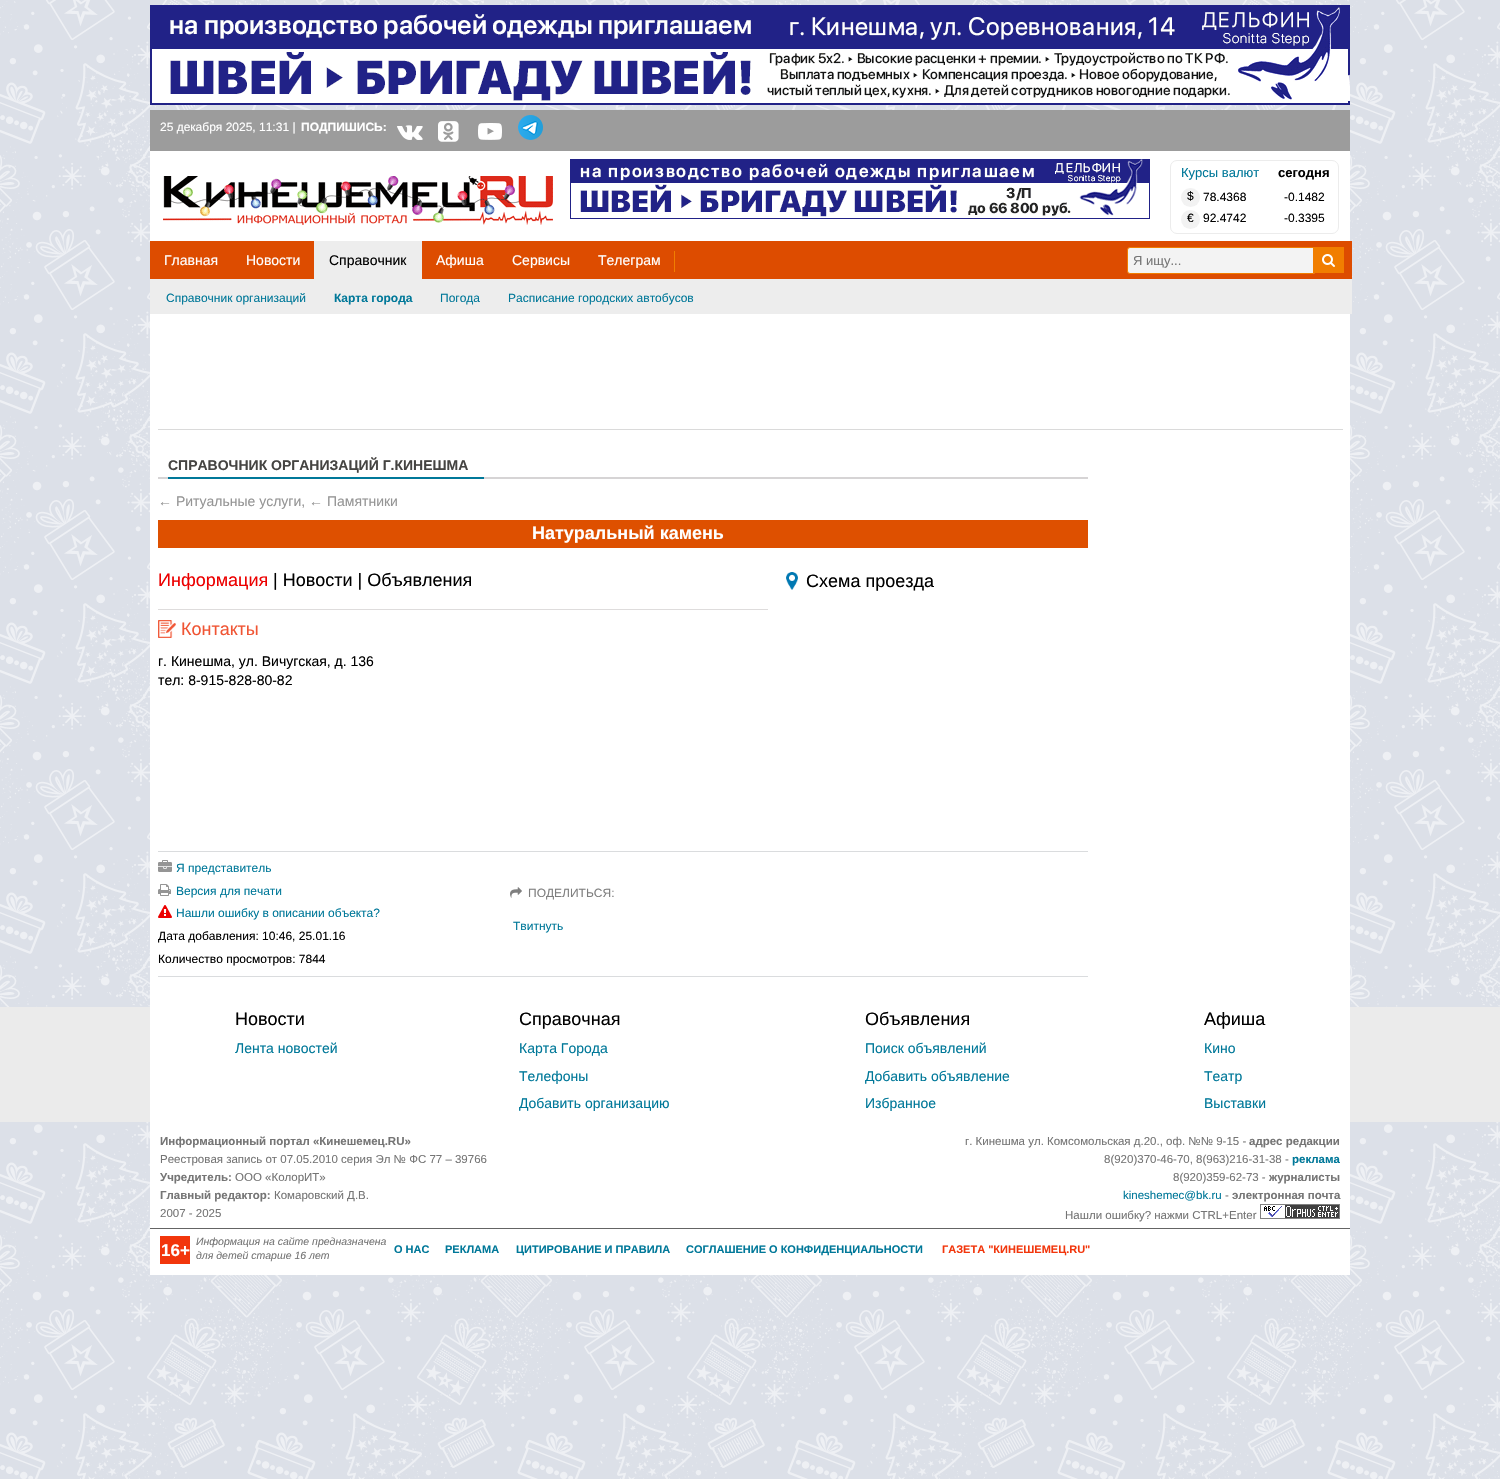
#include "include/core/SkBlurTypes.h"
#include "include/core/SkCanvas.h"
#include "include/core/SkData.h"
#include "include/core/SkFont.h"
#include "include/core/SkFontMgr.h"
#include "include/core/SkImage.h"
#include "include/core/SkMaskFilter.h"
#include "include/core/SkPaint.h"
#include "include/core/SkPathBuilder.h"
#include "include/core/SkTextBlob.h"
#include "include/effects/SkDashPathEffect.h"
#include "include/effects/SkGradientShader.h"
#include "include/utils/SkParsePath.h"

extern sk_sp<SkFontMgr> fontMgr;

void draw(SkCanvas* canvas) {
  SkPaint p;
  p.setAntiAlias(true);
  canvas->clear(SkColorSetRGB(220, 224, 232));
  canvas->drawImageRect(SkImages::DeferredFromEncodedData(SkData::MakeFromFileName("images/1.png")), SkRect::MakeLTRB(0, 0, 1500, 1479), SkSamplingOptions());
  canvas->drawImageRect(SkImages::DeferredFromEncodedData(SkData::MakeFromFileName("images/2.png")), SkRect::MakeLTRB(150, 5, 1350, 105), SkSamplingOptions());
  p.setColor(SkColorSetRGB(156, 156, 156));
  canvas->drawRect(SkRect::MakeLTRB(150, 110, 1350, 151), p);
  canvas->drawImageRect(SkImages::DeferredFromEncodedData(SkData::MakeFromFileName("images/3.png")), SkRect::MakeLTRB(397, 125, 423, 140), SkSamplingOptions());
  canvas->drawImageRect(SkImages::DeferredFromEncodedData(SkData::MakeFromFileName("images/4.png")), SkRect::MakeLTRB(438, 121, 459, 142), SkSamplingOptions());
  canvas->drawImageRect(SkImages::DeferredFromEncodedData(SkData::MakeFromFileName("images/5.png")), SkRect::MakeLTRB(478, 123, 502, 140), SkSamplingOptions());
  canvas->drawImageRect(SkImages::DeferredFromEncodedData(SkData::MakeFromFileName("images/6.png")), SkRect::MakeLTRB(518, 115, 543, 140), SkSamplingOptions());
  p.setColor(SK_ColorWHITE);
  canvas->drawRect(SkRect::MakeLTRB(150, 151, 1350, 1007), p);
  canvas->drawImageRect(SkImages::DeferredFromEncodedData(SkData::MakeFromFileName("images/7.png")), SkRect::MakeLTRB(163, 176, 553, 225), SkSamplingOptions());
  canvas->drawImageRect(SkImages::DeferredFromEncodedData(SkData::MakeFromFileName("images/8.png")), SkRect::MakeLTRB(570, 159, 1150, 219), SkSamplingOptions());
  p.setStyle(SkPaint::kStroke_Style);
  p.setStrokeWidth(1);
  p.setColor(SkColorSetRGB(236, 236, 236));
  canvas->drawRoundRect(SkRect::MakeLTRB(1170.5f, 160.5f, 1338.5f, 233.5f), 6.5f, 6.5f, p);
  p.setStyle(SkPaint::kFill_Style);
  p.setColor(SkColorSetRGB(242, 242, 242));
  canvas->drawCircle(1190.5f, 197.5f, 9.5f, p);
  canvas->drawCircle(1190.5f, 219.5f, 9.5f, p);
  p.setColor(SkColorSetRGB(221, 76, 0));
  canvas->drawRect(SkRect::MakeLTRB(150, 241, 1352, 279), p);
  p.setColor(SkColorSetRGB(237, 237, 237));
  canvas->drawRect(SkRect::MakeLTRB(314, 241, 422, 279), p);
  p.setColor(SkColorSetRGB(241, 126, 0));
  canvas->drawRect(SkRect::MakeLTRB(674, 251, 675, 272), p);
  p.setColor(SkColorSetRGB(243, 243, 243));
  canvas->drawRoundRect(SkRect::MakeLTRB(1127.5f, 247.5f, 1315.5f, 273.5f), 2.5f, 2.5f, p);
  p.setStyle(SkPaint::kStroke_Style);
  p.setColor(SkColorSetRGB(241, 126, 0));
  canvas->drawRoundRect(SkRect::MakeLTRB(1127.5f, 247.5f, 1315.5f, 273.5f), 2.5f, 2.5f, p);
  p.setStyle(SkPaint::kFill_Style);
  canvas->drawRect(SkRect::MakeLTRB(1313, 247, 1344, 273), p);
  canvas->drawImageRect(SkImages::DeferredFromEncodedData(SkData::MakeFromFileName("images/9.png")), SkRect::MakeLTRB(1322, 254, 1335, 267), SkSamplingOptions());
  p.setColor(SkColorSetRGB(237, 237, 237));
  canvas->drawRect(SkRect::MakeLTRB(150, 279, 1352, 314), p);
  p.setColor(SkColorSetRGB(218, 218, 218));
  canvas->drawRect(SkRect::MakeLTRB(158, 429, 1343, 430), p);
  p.setColor(SkColorSetRGB(214, 212, 213));
  canvas->drawRect(SkRect::MakeLTRB(158, 477, 1088, 479), p);
  p.setColor(SkColorSetRGB(0, 120, 153));
  canvas->drawRect(SkRect::MakeLTRB(168, 477, 484, 479), p);
  p.setColor(SkColorSetRGB(222, 80, 0));
  canvas->drawRect(SkRect::MakeLTRB(158, 520, 1088, 548), p);
  canvas->drawImageRect(SkImages::DeferredFromEncodedData(SkData::MakeFromFileName("images/10.png")), SkRect::MakeLTRB(786, 572, 798, 590), SkSamplingOptions());
  p.setColor(SkColorSetRGB(222, 220, 220));
  canvas->drawRect(SkRect::MakeLTRB(158, 609, 768, 610), p);
  canvas->drawImageRect(SkImages::DeferredFromEncodedData(SkData::MakeFromFileName("images/11.png")), SkRect::MakeLTRB(158, 620, 176, 638), SkSamplingOptions());
  p.setColor(SkColorSetRGB(218, 220, 222));
  canvas->drawRect(SkRect::MakeLTRB(158, 851, 1088, 852), p);
  canvas->drawRect(SkRect::MakeLTRB(158, 976, 1088, 977), p);
  canvas->drawImageRect(SkImages::DeferredFromEncodedData(SkData::MakeFromFileName("images/12.png")), SkRect::MakeLTRB(158, 860, 172, 872), SkSamplingOptions());
  canvas->drawImageRect(SkImages::DeferredFromEncodedData(SkData::MakeFromFileName("images/13.png")), SkRect::MakeLTRB(158, 884, 171, 896), SkSamplingOptions());
  canvas->drawImageRect(SkImages::DeferredFromEncodedData(SkData::MakeFromFileName("images/14.png")), SkRect::MakeLTRB(158, 905, 172, 918), SkSamplingOptions());
  canvas->drawImageRect(SkImages::DeferredFromEncodedData(SkData::MakeFromFileName("images/15.png")), SkRect::MakeLTRB(510, 887, 522, 898), SkSamplingOptions());
  p.setColor(SkColorSetRGB(235, 235, 235));
  canvas->drawRect(SkRect::MakeLTRB(0, 1007, 1500, 1122), p);
  p.setColor(SK_ColorWHITE);
  canvas->drawRect(SkRect::MakeLTRB(150, 1007, 1350, 1275), p);
  canvas->drawImageRect(SkImages::DeferredFromEncodedData(SkData::MakeFromFileName("images/16.png")), SkRect::MakeLTRB(1260, 1204, 1340, 1219), SkSamplingOptions());
  p.setColor(SkColorSetRGB(100, 100, 100));
  canvas->drawRect(SkRect::MakeLTRB(150, 1228, 1350, 1229), p);
  p.setColor(SkColorSetRGB(242, 54, 12));
  canvas->drawRect(SkRect::MakeLTRB(160, 1236, 190, 1264), p);
  SkFont font1(fontMgr->matchFamilyStyle("Liberation Sans", SkFontStyle::Normal()), 12);
  font1.setSubpixel(true);
  p.setColor(SK_ColorWHITE);
  canvas->drawString("25 декабря 2025, 11:31 |", 160, 131, font1, p);
  SkFont font2(fontMgr->matchFamilyStyle("Liberation Sans", SkFontStyle::Bold()), 12);
  font2.setSubpixel(true);
  canvas->drawString("ПОДПИШИСЬ:", 301, 131, font2, p);
  SkFont font3(fontMgr->matchFamilyStyle("Liberation Sans", SkFontStyle::Normal()), 13);
  font3.setSubpixel(true);
  p.setColor(SkColorSetRGB(0, 120, 153));
  canvas->drawString("Курсы валют", 1181, 177, font3, p);
  SkFont font4(fontMgr->matchFamilyStyle("Liberation Sans", SkFontStyle::Bold()), 13);
  font4.setSubpixel(true);
  p.setColor(SK_ColorBLACK);
  canvas->drawString("сегодня", 1278, 177, font4, p);
  canvas->drawString("$", 1187, 200, font1, p);
  canvas->drawString("78.4368", 1203, 201, font1, p);
  canvas->drawString("-0.1482", 1284, 201, font1, p);
  canvas->drawString("€", 1187, 222, font1, p);
  canvas->drawString("92.4742", 1203, 222, font1, p);
  canvas->drawString("-0.3395", 1284, 222, font1, p);
  SkFont font5(fontMgr->matchFamilyStyle("Liberation Sans", SkFontStyle::Normal()), 14);
  font5.setSubpixel(true);
  p.setColor(SK_ColorWHITE);
  canvas->drawString("Главная", 164, 265, font5, p);
  canvas->drawString("Новости", 246, 265, font5, p);
  p.setColor(SK_ColorBLACK);
  canvas->drawString("Справочник", 329, 265, font5, p);
  p.setColor(SK_ColorWHITE);
  canvas->drawString("Афиша", 436, 265, font5, p);
  canvas->drawString("Сервисы", 512, 265, font5, p);
  canvas->drawString("Телеграм", 598, 265, font5, p);
  p.setColor(SkColorSetRGB(117, 117, 117));
  canvas->drawString("Я ищу...", 1133, 265, font3, p);
  p.setColor(SkColorSetRGB(0, 120, 153));
  canvas->drawString("Справочник организаций", 166, 302, font1, p);
  canvas->drawString("Карта города", 334, 302, font2, p);
  canvas->drawString("Погода", 440, 302, font1, p);
  canvas->drawString("Расписание городских автобусов", 508, 302, font1, p);
  SkFont font6(fontMgr->matchFamilyStyle("Liberation Sans", SkFontStyle::Bold()), 14);
  font6.setSubpixel(true);
  p.setColor(SkColorSetRGB(69, 68, 66));
  canvas->drawString("СПРАВОЧНИК ОРГАНИЗАЦИЙ Г.КИНЕШМА", 168, 470, font6, p);
  p.setColor(SkColorSetRGB(149, 149, 149));
  canvas->drawString("← Ритуальные услуги, ← Памятники", 158, 506, font5, p);
  SkFont font7(fontMgr->matchFamilyStyle("Liberation Sans", SkFontStyle::Bold()), 18);
  font7.setSubpixel(true);
  p.setColor(SK_ColorWHITE);
  canvas->drawString("Натуральный камень", 532, 539, font7, p);
  SkFont font8(fontMgr->matchFamilyStyle("Liberation Sans", SkFontStyle::Normal()), 18);
  font8.setSubpixel(true);
  p.setColor(SkColorSetRGB(236, 0, 0));
  canvas->drawString("Информация", 158, 586, font8, p);
  p.setColor(SK_ColorBLACK);
  canvas->drawString("| Новости | Объявления", 273, 586, font8, p);
  canvas->drawString("Схема проезда", 806, 587, font8, p);
  p.setColor(SkColorSetRGB(240, 85, 52));
  canvas->drawString("Контакты", 181, 635, font8, p);
  p.setColor(SK_ColorBLACK);
  canvas->drawString("г. Кинешма, ул. Вичугская, д. 136", 158, 666, font5, p);
  canvas->drawString("тел: 8-915-828-80-82", 158, 685, font5, p);
  p.setColor(SkColorSetRGB(0, 120, 153));
  canvas->drawString("Я представитель", 176, 872, font1, p);
  canvas->drawString("Версия для печати", 176, 895, font1, p);
  canvas->drawString("Нашли ошибку в описании объекта?", 176, 917, font1, p);
  p.setColor(SK_ColorBLACK);
  canvas->drawString("Дата добавления: 10:46, 25.01.16", 158, 940, font1, p);
  canvas->drawString("Количество просмотров: 7844", 158, 963, font1, p);
  p.setColor(SkColorSetRGB(127, 127, 127));
  canvas->drawString("ПОДЕЛИТЬСЯ:", 528, 897, font1, p);
  p.setColor(SkColorSetRGB(0, 120, 153));
  canvas->drawString("Твитнуть", 513, 930, font1, p);
  p.setColor(SK_ColorBLACK);
  canvas->drawString("Новости", 235, 1025, font8, p);
  p.setColor(SkColorSetRGB(0, 120, 153));
  canvas->drawString("Лента новостей", 235, 1053, font5, p);
  p.setColor(SK_ColorBLACK);
  canvas->drawString("Справочная", 519, 1025, font8, p);
  p.setColor(SkColorSetRGB(0, 120, 153));
  canvas->drawString("Карта Города", 519, 1053, font5, p);
  canvas->drawString("Телефоны", 519, 1081, font5, p);
  canvas->drawString("Добавить организацию", 519, 1108, font5, p);
  p.setColor(SK_ColorBLACK);
  canvas->drawString("Объявления", 865, 1025, font8, p);
  p.setColor(SkColorSetRGB(0, 120, 153));
  canvas->drawString("Поиск объявлений", 865, 1053, font5, p);
  canvas->drawString("Добавить объявление", 865, 1081, font5, p);
  canvas->drawString("Избранное", 865, 1108, font5, p);
  p.setColor(SK_ColorBLACK);
  canvas->drawString("Афиша", 1204, 1025, font8, p);
  p.setColor(SkColorSetRGB(0, 120, 153));
  canvas->drawString("Кино", 1204, 1053, font5, p);
  canvas->drawString("Театр", 1204, 1081, font5, p);
  canvas->drawString("Выставки", 1204, 1108, font5, p);
  SkFont font9(fontMgr->matchFamilyStyle("Liberation Sans", SkFontStyle::Bold()), 11.5f);
  font9.setSubpixel(true);
  p.setColor(SkColorSetRGB(117, 117, 117));
  canvas->drawString("Информационный портал «Кинешемец.RU»", 160, 1145, font9, p);
  SkFont font10(fontMgr->matchFamilyStyle("Liberation Sans", SkFontStyle::Normal()), 11.5f);
  font10.setSubpixel(true);
  canvas->drawString("Реестровая запись от 07.05.2010 серия Эл № ФС 77 – 39766", 160, 1163, font10, p);
  canvas->drawString("Учредитель:", 160, 1181, font9, p);
  canvas->drawString("ООО «КолорИТ»", 235, 1181, font10, p);
  canvas->drawString("Главный редактор:", 160, 1199, font9, p);
  canvas->drawString("Комаровский Д.В.", 274, 1199, font10, p);
  canvas->drawString("2007 - 2025", 160, 1217, font10, p);
  canvas->drawString("г. Кинешма ул. Комсомольская д.20., оф. №№ 9-15 -", 965, 1145, font10, p);
  canvas->drawString("адрес редакции", 1249, 1145, font9, p);
  canvas->drawString("8(920)370-46-70, 8(963)216-31-38 -", 1104, 1163, font10, p);
  p.setColor(SkColorSetRGB(0, 120, 153));
  canvas->drawString("реклама", 1292, 1163, font9, p);
  p.setColor(SkColorSetRGB(117, 117, 117));
  canvas->drawString("8(920)359-62-73 -", 1173, 1181, font10, p);
  canvas->drawString("журналисты", 1269, 1181, font9, p);
  p.setColor(SkColorSetRGB(0, 120, 153));
  canvas->drawString("kineshemec@bk.ru", 1123, 1199, font10, p);
  p.setColor(SkColorSetRGB(117, 117, 117));
  canvas->drawString("-", 1225, 1199, font10, p);
  canvas->drawString("электронная почта", 1232, 1199, font9, p);
  canvas->drawString("Нашли ошибку? нажми CTRL+Enter", 1065, 1219, font10, p);
  SkFont font11(fontMgr->matchFamilyStyle("Liberation Sans", SkFontStyle::Bold()), 17);
  font11.setSubpixel(true);
  p.setColor(SK_ColorWHITE);
  canvas->drawString("16+", 161, 1256, font11, p);
  SkFont font12(fontMgr->matchFamilyStyle("Liberation Sans", SkFontStyle::Italic()), 10.5f);
  font12.setSubpixel(true);
  p.setColor(SkColorSetRGB(117, 117, 117));
  canvas->drawString("Информация на сайте предназначена", 196, 1245, font12, p);
  canvas->drawString("для детей старше 16 лет", 196, 1259, font12, p);
  SkFont font13(fontMgr->matchFamilyStyle("Liberation Sans", SkFontStyle::Bold()), 11);
  font13.setSubpixel(true);
  p.setColor(SkColorSetRGB(0, 120, 153));
  canvas->drawString("О НАС", 394, 1253, font13, p);
  canvas->drawString("РЕКЛАМА", 445, 1253, font13, p);
  canvas->drawString("ЦИТИРОВАНИЕ И ПРАВИЛА", 516, 1253, font13, p);
  canvas->drawString("СОГЛАШЕНИЕ О КОНФИДЕНЦИАЛЬНОСТИ", 686, 1253, font13, p);
  p.setColor(SkColorSetRGB(242, 54, 12));
  canvas->drawString("ГАЗЕТА \"КИНЕШЕМЕЦ.RU\"", 942, 1253, font13, p);
}
